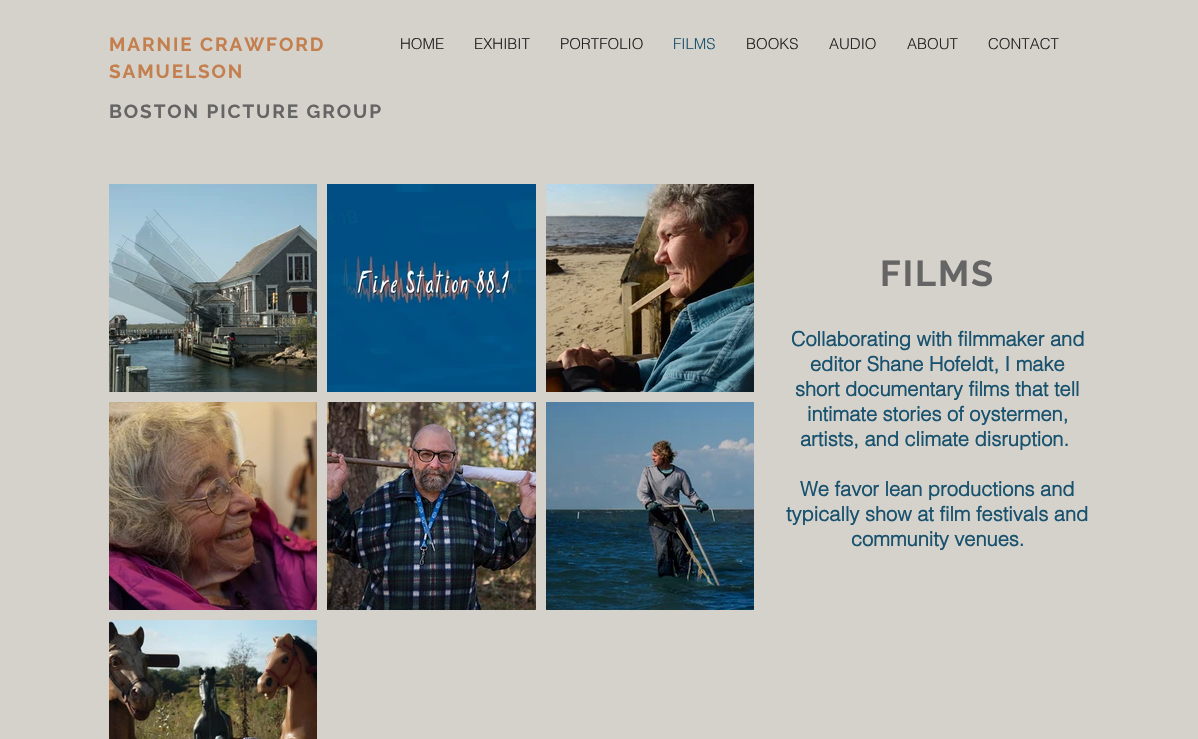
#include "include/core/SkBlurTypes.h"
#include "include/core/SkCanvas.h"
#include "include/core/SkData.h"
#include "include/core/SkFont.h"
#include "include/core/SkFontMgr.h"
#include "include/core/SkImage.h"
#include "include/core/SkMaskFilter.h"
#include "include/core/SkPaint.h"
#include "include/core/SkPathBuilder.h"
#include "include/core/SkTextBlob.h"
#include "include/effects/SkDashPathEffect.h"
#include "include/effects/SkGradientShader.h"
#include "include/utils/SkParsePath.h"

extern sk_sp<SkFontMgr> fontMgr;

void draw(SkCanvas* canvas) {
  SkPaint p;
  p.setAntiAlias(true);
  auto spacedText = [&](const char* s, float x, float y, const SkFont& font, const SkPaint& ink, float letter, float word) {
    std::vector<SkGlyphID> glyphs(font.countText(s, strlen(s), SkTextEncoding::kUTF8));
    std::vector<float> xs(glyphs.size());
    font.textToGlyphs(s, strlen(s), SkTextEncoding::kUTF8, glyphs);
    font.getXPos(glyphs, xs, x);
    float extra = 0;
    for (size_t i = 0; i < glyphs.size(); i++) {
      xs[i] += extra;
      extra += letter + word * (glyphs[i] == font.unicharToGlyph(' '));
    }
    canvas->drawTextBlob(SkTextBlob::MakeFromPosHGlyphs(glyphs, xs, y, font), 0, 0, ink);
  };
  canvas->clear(SkColorSetRGB(213, 210, 203));
  canvas->drawImageRect(SkImages::DeferredFromEncodedData(SkData::MakeFromFileName("images/1.png")), SkRect::MakeLTRB(109, 184, 317, 392), SkSamplingOptions());
  canvas->drawImageRect(SkImages::DeferredFromEncodedData(SkData::MakeFromFileName("images/2.png")), SkRect::MakeLTRB(327, 184, 536, 392), SkSamplingOptions());
  canvas->drawImageRect(SkImages::DeferredFromEncodedData(SkData::MakeFromFileName("images/3.png")), SkRect::MakeLTRB(546, 184, 754, 392), SkSamplingOptions());
  canvas->drawImageRect(SkImages::DeferredFromEncodedData(SkData::MakeFromFileName("images/4.png")), SkRect::MakeLTRB(109, 402, 317, 610), SkSamplingOptions());
  canvas->drawImageRect(SkImages::DeferredFromEncodedData(SkData::MakeFromFileName("images/5.png")), SkRect::MakeLTRB(327, 402, 536, 610), SkSamplingOptions());
  canvas->drawImageRect(SkImages::DeferredFromEncodedData(SkData::MakeFromFileName("images/6.png")), SkRect::MakeLTRB(546, 402, 754, 610), SkSamplingOptions());
  canvas->drawImageRect(SkImages::DeferredFromEncodedData(SkData::MakeFromFileName("images/7.png")), SkRect::MakeLTRB(109, 620, 317, 739), SkSamplingOptions());
  SkFont font1(fontMgr->matchFamilyStyle("Raleway", SkFontStyle::Bold()), 19);
  font1.setSubpixel(true);
  p.setColor(SkColorSetRGB(196, 127, 79));
  spacedText("MARNIE CRAWFORD", 109, 51, font1, p, 1.9f, 0);
  spacedText("SAMUELSON", 109, 78, font1, p, 1.9f, 0);
  SkFont font2(fontMgr->matchFamilyStyle("helvetica", SkFontStyle(300, SkFontStyle::kNormal_Width, SkFontStyle::kUpright_Slant)), 15);
  font2.setSubpixel(true);
  p.setColor(SkColorSetRGB(34, 34, 34));
  canvas->drawString("HOME", 400, 49, font2, p);
  canvas->drawString("EXHIBIT", 474, 49, font2, p);
  canvas->drawString("PORTFOLIO", 560, 49, font2, p);
  p.setColor(SkColorSetRGB(25, 82, 111));
  canvas->drawString("FILMS", 673, 49, font2, p);
  p.setColor(SkColorSetRGB(34, 34, 34));
  canvas->drawString("BOOKS", 746, 49, font2, p);
  canvas->drawString("AUDIO", 829, 49, font2, p);
  canvas->drawString("ABOUT", 907, 49, font2, p);
  canvas->drawString("CONTACT", 988, 49, font2, p);
  p.setColor(SkColorSetRGB(101, 101, 101));
  spacedText("BOSTON PICTURE GROUP", 109, 118, font1, p, 1.9f, 0);
  SkFont font3(fontMgr->matchFamilyStyle("Raleway", SkFontStyle::Bold()), 36);
  font3.setSubpixel(true);
  spacedText("FILMS", 880, 286, font3, p, 2, 0);
  SkFont font4(fontMgr->matchFamilyStyle("helvetica", SkFontStyle::Bold()), 20);
  font4.setSubpixel(true);
  p.setColor(SkColorSetRGB(25, 82, 111));
  canvas->drawString("Collaborating with filmmaker and", 791, 346, font4, p);
  canvas->drawString("editor Shane Hofeldt, I make", 810, 371, font4, p);
  canvas->drawString("short documentary films that tell", 795, 396, font4, p);
  canvas->drawString("intimate stories of oystermen,", 807, 421, font4, p);
  canvas->drawString("artists, and climate disruption.", 800, 446, font4, p);
  canvas->drawString("We favor lean productions and", 800, 496, font4, p);
  canvas->drawString("typically show at film festivals and", 786, 521, font4, p);
  canvas->drawString("community venues.", 851, 546, font4, p);
}
